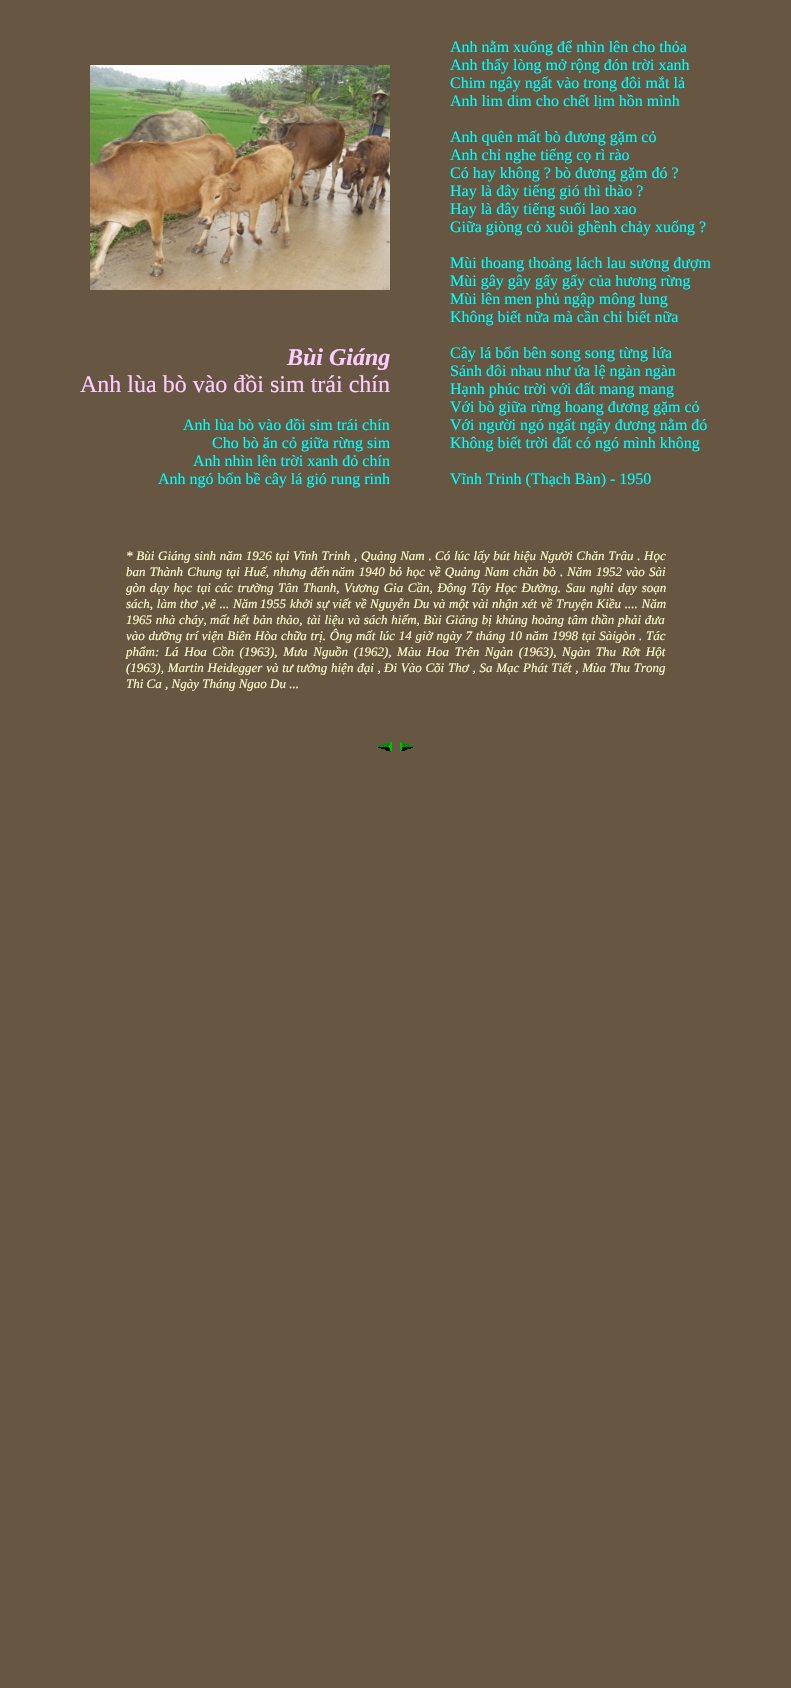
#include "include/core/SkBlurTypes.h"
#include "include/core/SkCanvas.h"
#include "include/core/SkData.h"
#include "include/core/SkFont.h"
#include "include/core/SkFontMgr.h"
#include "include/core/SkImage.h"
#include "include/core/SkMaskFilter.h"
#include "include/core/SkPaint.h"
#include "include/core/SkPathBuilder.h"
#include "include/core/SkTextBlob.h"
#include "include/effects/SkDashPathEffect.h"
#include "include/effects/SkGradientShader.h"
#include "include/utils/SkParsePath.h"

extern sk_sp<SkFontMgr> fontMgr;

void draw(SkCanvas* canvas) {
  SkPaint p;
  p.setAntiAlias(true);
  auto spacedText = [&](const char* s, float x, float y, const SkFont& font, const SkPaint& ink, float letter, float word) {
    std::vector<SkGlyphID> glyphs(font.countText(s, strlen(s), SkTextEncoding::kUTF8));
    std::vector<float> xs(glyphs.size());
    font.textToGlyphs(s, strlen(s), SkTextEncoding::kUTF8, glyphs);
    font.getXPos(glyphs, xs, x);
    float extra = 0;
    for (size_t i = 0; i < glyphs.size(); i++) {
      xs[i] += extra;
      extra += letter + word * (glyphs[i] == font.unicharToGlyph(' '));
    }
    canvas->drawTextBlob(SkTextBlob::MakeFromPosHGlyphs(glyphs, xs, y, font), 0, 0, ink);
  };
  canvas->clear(SkColorSetRGB(103, 86, 65));
  canvas->drawImageRect(SkImages::DeferredFromEncodedData(SkData::MakeFromFileName("images/1.png")), SkRect::MakeLTRB(90, 65, 390, 290), SkSamplingOptions());
  canvas->drawImageRect(SkImages::DeferredFromEncodedData(SkData::MakeFromFileName("images/2.png")), SkRect::MakeLTRB(377, 742, 392, 752), SkSamplingOptions());
  canvas->drawImageRect(SkImages::DeferredFromEncodedData(SkData::MakeFromFileName("images/3.png")), SkRect::MakeLTRB(400, 742, 415, 752), SkSamplingOptions());
  SkFont font1(fontMgr->matchFamilyStyle("Liberation Serif", SkFontStyle::BoldItalic()), 24);
  font1.setSubpixel(true);
  p.setColor(SkColorSetRGB(255, 204, 255));
  canvas->drawString("Bùi Giáng", 287, 365, font1, p);
  SkFont font2(fontMgr->matchFamilyStyle("Liberation Serif", SkFontStyle::Normal()), 24);
  font2.setSubpixel(true);
  canvas->drawString("Anh lùa bò vào đồi sim trái chín", 80, 392, font2, p);
  SkFont font3(fontMgr->matchFamilyStyle("Liberation Serif", SkFontStyle::Normal()), 16);
  font3.setSubpixel(true);
  p.setColor(SkColorSetRGB(0, 255, 255));
  canvas->drawString("Anh lùa bò vào đồi sim trái chín", 183, 430, font3, p);
  canvas->drawString("Cho bò ăn cỏ giữa rừng sim", 212, 448, font3, p);
  canvas->drawString("Anh nhìn lên trời xanh đỏ chín", 193, 466, font3, p);
  canvas->drawString("Anh ngó bốn bề cây lá gió rung rinh", 158, 484, font3, p);
  canvas->drawString("Anh nằm xuống để nhìn lên cho thỏa", 450, 52, font3, p);
  canvas->drawString("Anh thấy lòng mở rộng đón trời xanh", 450, 70, font3, p);
  canvas->drawString("Chim ngây ngất vào trong đôi mắt lả", 450, 88, font3, p);
  canvas->drawString("Anh lim dim cho chết lịm hồn mình", 450, 106, font3, p);
  canvas->drawString("Anh quên mất bò đương gặm cỏ", 450, 142, font3, p);
  canvas->drawString("Anh chỉ nghe tiếng cọ rì rào", 450, 160, font3, p);
  canvas->drawString("Có hay không ? bò đương gặm đó ?", 450, 178, font3, p);
  canvas->drawString("Hay là đây tiếng gió thì thào ?", 450, 196, font3, p);
  canvas->drawString("Hay là đây tiếng suối lao xao", 450, 214, font3, p);
  canvas->drawString("Giữa giòng cỏ xuôi ghềnh chảy xuống ?", 450, 232, font3, p);
  canvas->drawString("Mùi thoang thoảng lách lau sương đượm", 450, 268, font3, p);
  canvas->drawString("Mùi gây gây gấy gấy của hương rừng", 450, 286, font3, p);
  canvas->drawString("Mùi lên men phủ ngập mông lung", 450, 304, font3, p);
  canvas->drawString("Không biết nữa mà cần chi biết nữa", 450, 322, font3, p);
  canvas->drawString("Cây lá bốn bên song song từng lứa", 450, 358, font3, p);
  canvas->drawString("Sánh đôi nhau như ứa lệ ngàn ngàn", 450, 376, font3, p);
  canvas->drawString("Hạnh phúc trời với đất mang mang", 450, 394, font3, p);
  canvas->drawString("Với bò giữa rừng hoang đương gặm cỏ", 450, 412, font3, p);
  canvas->drawString("Với người ngó ngất ngây đương nằm đó", 450, 430, font3, p);
  canvas->drawString("Không biết trời đất có ngó mình không", 450, 448, font3, p);
  canvas->drawString("Vĩnh Trinh (Thạch Bàn) - 1950", 450, 484, font3, p);
  SkFont font4(fontMgr->matchFamilyStyle("Liberation Serif", SkFontStyle::Italic()), 13);
  font4.setSubpixel(true);
  p.setColor(SkColorSetRGB(255, 255, 204));
  spacedText("* Bùi Giáng sinh năm 1926 tại Vĩnh Trinh , Quảng Nam .", 126, 560, font4, p, 0, 0.5f);
  spacedText("Có lúc lấy bút hiệu Người Chăn Trâu .", 435, 560, font4, p, 0, 0.5f);
  canvas->drawString("Học", 644, 560, font4, p);
  spacedText("ban Thành Chung tại Huế, nhưng đến", 126, 576, font4, p, 0, 1);
  spacedText("năm 1940 bỏ học", 332, 576, font4, p, 0, 1);
  spacedText("về Quảng Nam chăn bò .", 429, 576, font4, p, 0, 1);
  canvas->drawString("Năm", 567, 576, font4, p);
  canvas->drawString("1952", 596, 576, font4, p);
  spacedText("vào Sài", 626, 576, font4, p, 0, 1);
  canvas->drawString("gòn", 126, 592, font4, p);
  spacedText("dạy học tại", 150, 592, font4, p, 0, 1.5f);
  spacedText("các trường Tân Thanh, Vương Gia Cần, Ðông Tây Học Ðường.", 215, 592, font4, p, 0, 1.4f);
  spacedText("Sau nghỉ dạy soạn", 566, 592, font4, p, 0, 1.5f);
  spacedText("sách, làm thơ ,vẽ ... Năm", 126, 608, font4, p, 0, 0.5f);
  canvas->drawString("1955", 260, 608, font4, p);
  spacedText("khởi sự viết về", 290, 608, font4, p, 0, 0.5f);
  spacedText("Nguyễn Du và một vài nhận xét về Truyện Kiều .... Năm", 370, 608, font4, p, 0, 0.5f);
  spacedText("1965 nhà cháy,", 126, 624, font4, p, 0, 0.5f);
  spacedText("mất hết bản thảo,", 210, 624, font4, p, 0, 0.5f);
  spacedText("tài liệu và sách hiếm, Bùi Giáng bị", 307, 624, font4, p, 0, 0.5f);
  spacedText("khủng hoảng tâm thần phải đưa", 496, 624, font4, p, 0, 0.5f);
  spacedText("vào dưỡng trí viện Biên Hòa chữa trị. Ông mất lúc 14 giờ ngày 7 tháng 10 năm 1998 tại Sàigòn . Tác", 126, 640, font4, p, 0, 0.5f);
  spacedText("phẩm: Lá Hoa Cồn (1963), Mưa Nguồn (1962), Màu Hoa Trên Ngàn (1963),", 126, 656, font4, p, 0, 2.4f);
  spacedText("Ngàn Thu Rớt Hột", 562, 656, font4, p, 0, 2.4f);
  spacedText("(1963), Martin Heidegger và tư tưởng hiện đại ,", 126, 672, font4, p, 0, 0.5f);
  spacedText("Ði Vào Cõi Thơ , Sa Mạc Phát Tiết , Mùa Thu Trong", 384, 672, font4, p, 0, 0.5f);
  canvas->drawString("Thi Ca , Ngày Tháng Ngao Du ...", 126, 688, font4, p);
}
